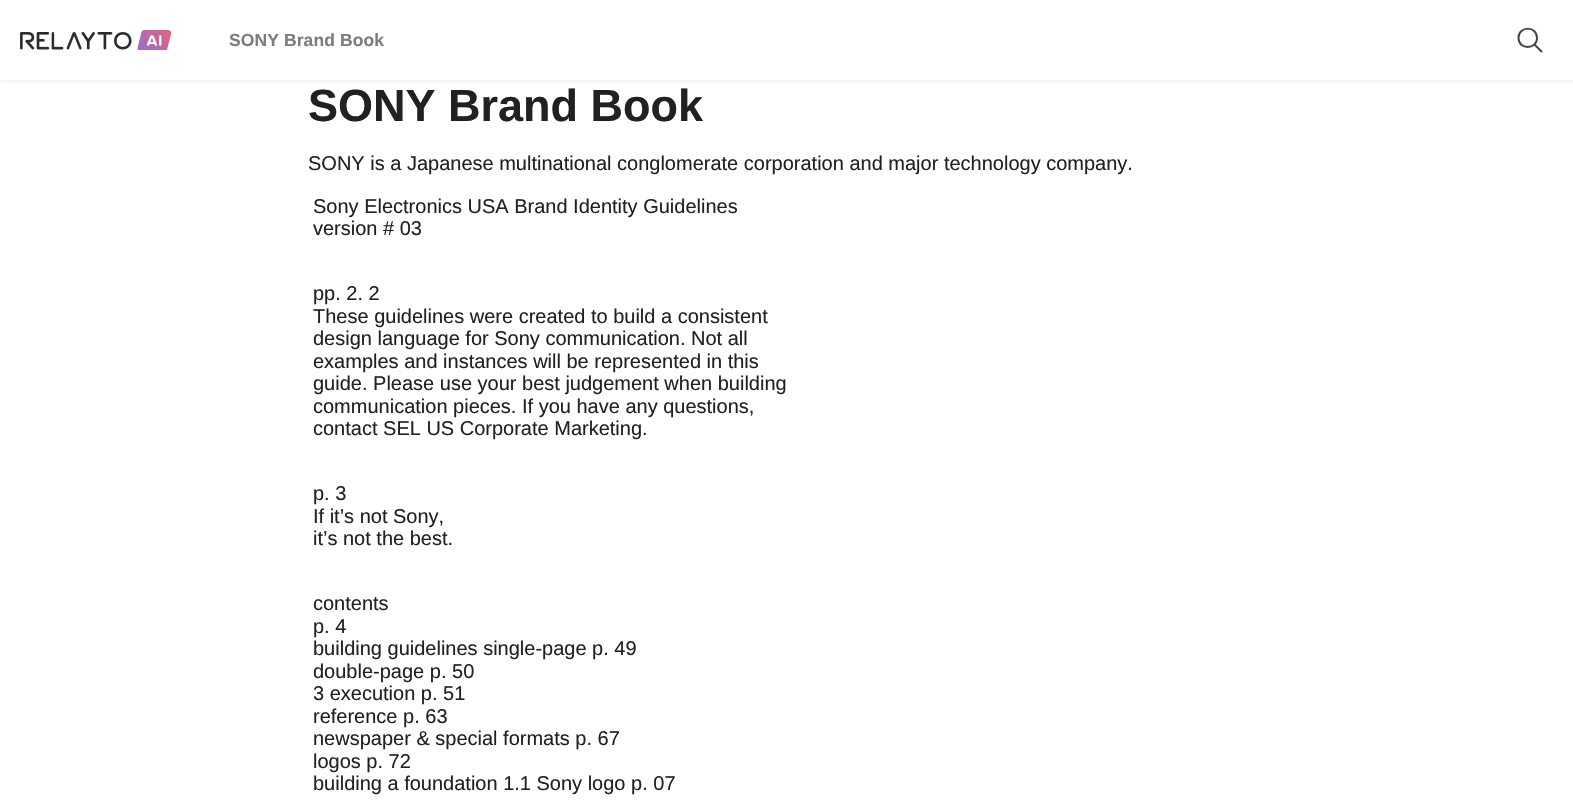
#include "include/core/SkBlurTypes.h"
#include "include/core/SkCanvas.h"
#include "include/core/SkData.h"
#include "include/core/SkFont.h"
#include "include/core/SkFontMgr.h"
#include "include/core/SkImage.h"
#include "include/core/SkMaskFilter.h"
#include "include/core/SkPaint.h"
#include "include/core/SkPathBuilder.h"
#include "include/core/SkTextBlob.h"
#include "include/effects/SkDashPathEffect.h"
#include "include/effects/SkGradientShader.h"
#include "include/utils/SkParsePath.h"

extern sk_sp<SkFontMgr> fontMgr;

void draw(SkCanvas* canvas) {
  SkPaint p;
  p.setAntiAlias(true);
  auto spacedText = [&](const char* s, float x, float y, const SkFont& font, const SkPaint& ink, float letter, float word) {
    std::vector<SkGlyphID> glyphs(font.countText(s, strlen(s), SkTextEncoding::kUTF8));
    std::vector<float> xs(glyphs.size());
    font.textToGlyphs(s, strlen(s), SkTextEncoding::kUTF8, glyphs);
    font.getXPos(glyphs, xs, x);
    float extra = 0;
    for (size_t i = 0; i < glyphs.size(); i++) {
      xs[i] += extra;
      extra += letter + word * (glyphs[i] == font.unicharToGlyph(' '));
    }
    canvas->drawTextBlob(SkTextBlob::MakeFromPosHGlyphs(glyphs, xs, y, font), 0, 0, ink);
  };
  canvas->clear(SK_ColorWHITE);
  canvas->save();
  canvas->clipRect(SkRect::MakeLTRB(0, 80, 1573, 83));
  p.setColor(SkColorSetARGB(10, 0, 0, 0));
  p.setMaskFilter(SkMaskFilter::MakeBlur(kNormal_SkBlurStyle, 1));
  canvas->drawRect(SkRect::MakeLTRB(0, 3, 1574, 83), p);
  p.setMaskFilter(nullptr);
  canvas->restore();
  canvas->drawImageRect(SkImages::DeferredFromEncodedData(SkData::MakeFromFileName("images/1.png")), SkRect::MakeLTRB(20, 30, 172, 50), SkSamplingOptions());
  p.setStyle(SkPaint::kStroke_Style);
  p.setStrokeWidth(1.9f);
  p.setStrokeCap(SkPaint::kRound_Cap);
  p.setStrokeJoin(SkPaint::kRound_Join);
  p.setColor(SkColorSetRGB(67, 67, 67));
  canvas->drawPath(SkPathBuilder().moveTo(1518.5f, 38).cubicTo(1518.5f, 50, 1537, 50, 1537, 38).cubicTo(1537, 25.5f, 1518.5f, 25.5f, 1518.5f, 38).close().moveTo(1534.5f, 44.5f).lineTo(1541.5f, 51.5f).detach(), p);
  SkFont font1(fontMgr->matchFamilyStyle("Liberation Sans", SkFontStyle::Bold()), 17.5f);
  font1.setSubpixel(true);
  p.setStyle(SkPaint::kFill_Style);
  p.setColor(SkColorSetRGB(123, 124, 125));
  spacedText("SONY Brand Book", 229, 46, font1, p, 0.1f, 0);
  SkFont font2(fontMgr->matchFamilyStyle("Liberation Sans", SkFontStyle::Bold()), 45);
  font2.setSubpixel(true);
  p.setColor(SkColorSetRGB(33, 33, 33));
  canvas->drawString("SONY Brand Book", 308, 121, font2, p);
  SkFont font3(fontMgr->matchFamilyStyle("Liberation Sans", SkFontStyle::Normal()), 20);
  font3.setSubpixel(true);
  canvas->drawString("SONY is a Japanese multinational conglomerate corporation and major technology company.", 308, 170, font3, p);
  canvas->drawString("Sony Electronics USA Brand Identity Guidelines", 313, 213, font3, p);
  canvas->drawString("version # 03", 313, 235, font3, p);
  canvas->drawString("pp. 2. 2", 313, 300, font3, p);
  canvas->drawString("These guidelines were created to build a consistent", 313, 323, font3, p);
  canvas->drawString("design language for Sony communication. Not all", 313, 345, font3, p);
  canvas->drawString("examples and instances will be represented in this", 313, 368, font3, p);
  canvas->drawString("guide. Please use your best judgement when building", 313, 390, font3, p);
  canvas->drawString("communication pieces. If you have any questions,", 313, 413, font3, p);
  canvas->drawString("contact SEL US Corporate Marketing.", 313, 435, font3, p);
  canvas->drawString("p. 3", 313, 500, font3, p);
  canvas->drawString("If it’s not Sony,", 313, 523, font3, p);
  canvas->drawString("it’s not the best.", 313, 545, font3, p);
  canvas->drawString("contents", 313, 610, font3, p);
  canvas->drawString("p. 4", 313, 633, font3, p);
  canvas->drawString("building guidelines single-page p. 49", 313, 655, font3, p);
  canvas->drawString("double-page p. 50", 313, 678, font3, p);
  canvas->drawString("3 execution p. 51", 313, 700, font3, p);
  canvas->drawString("reference p. 63", 313, 723, font3, p);
  canvas->drawString("newspaper & special formats p. 67", 313, 745, font3, p);
  canvas->drawString("logos p. 72", 313, 768, font3, p);
  canvas->drawString("building a foundation 1.1 Sony logo p. 07", 313, 790, font3, p);
}
